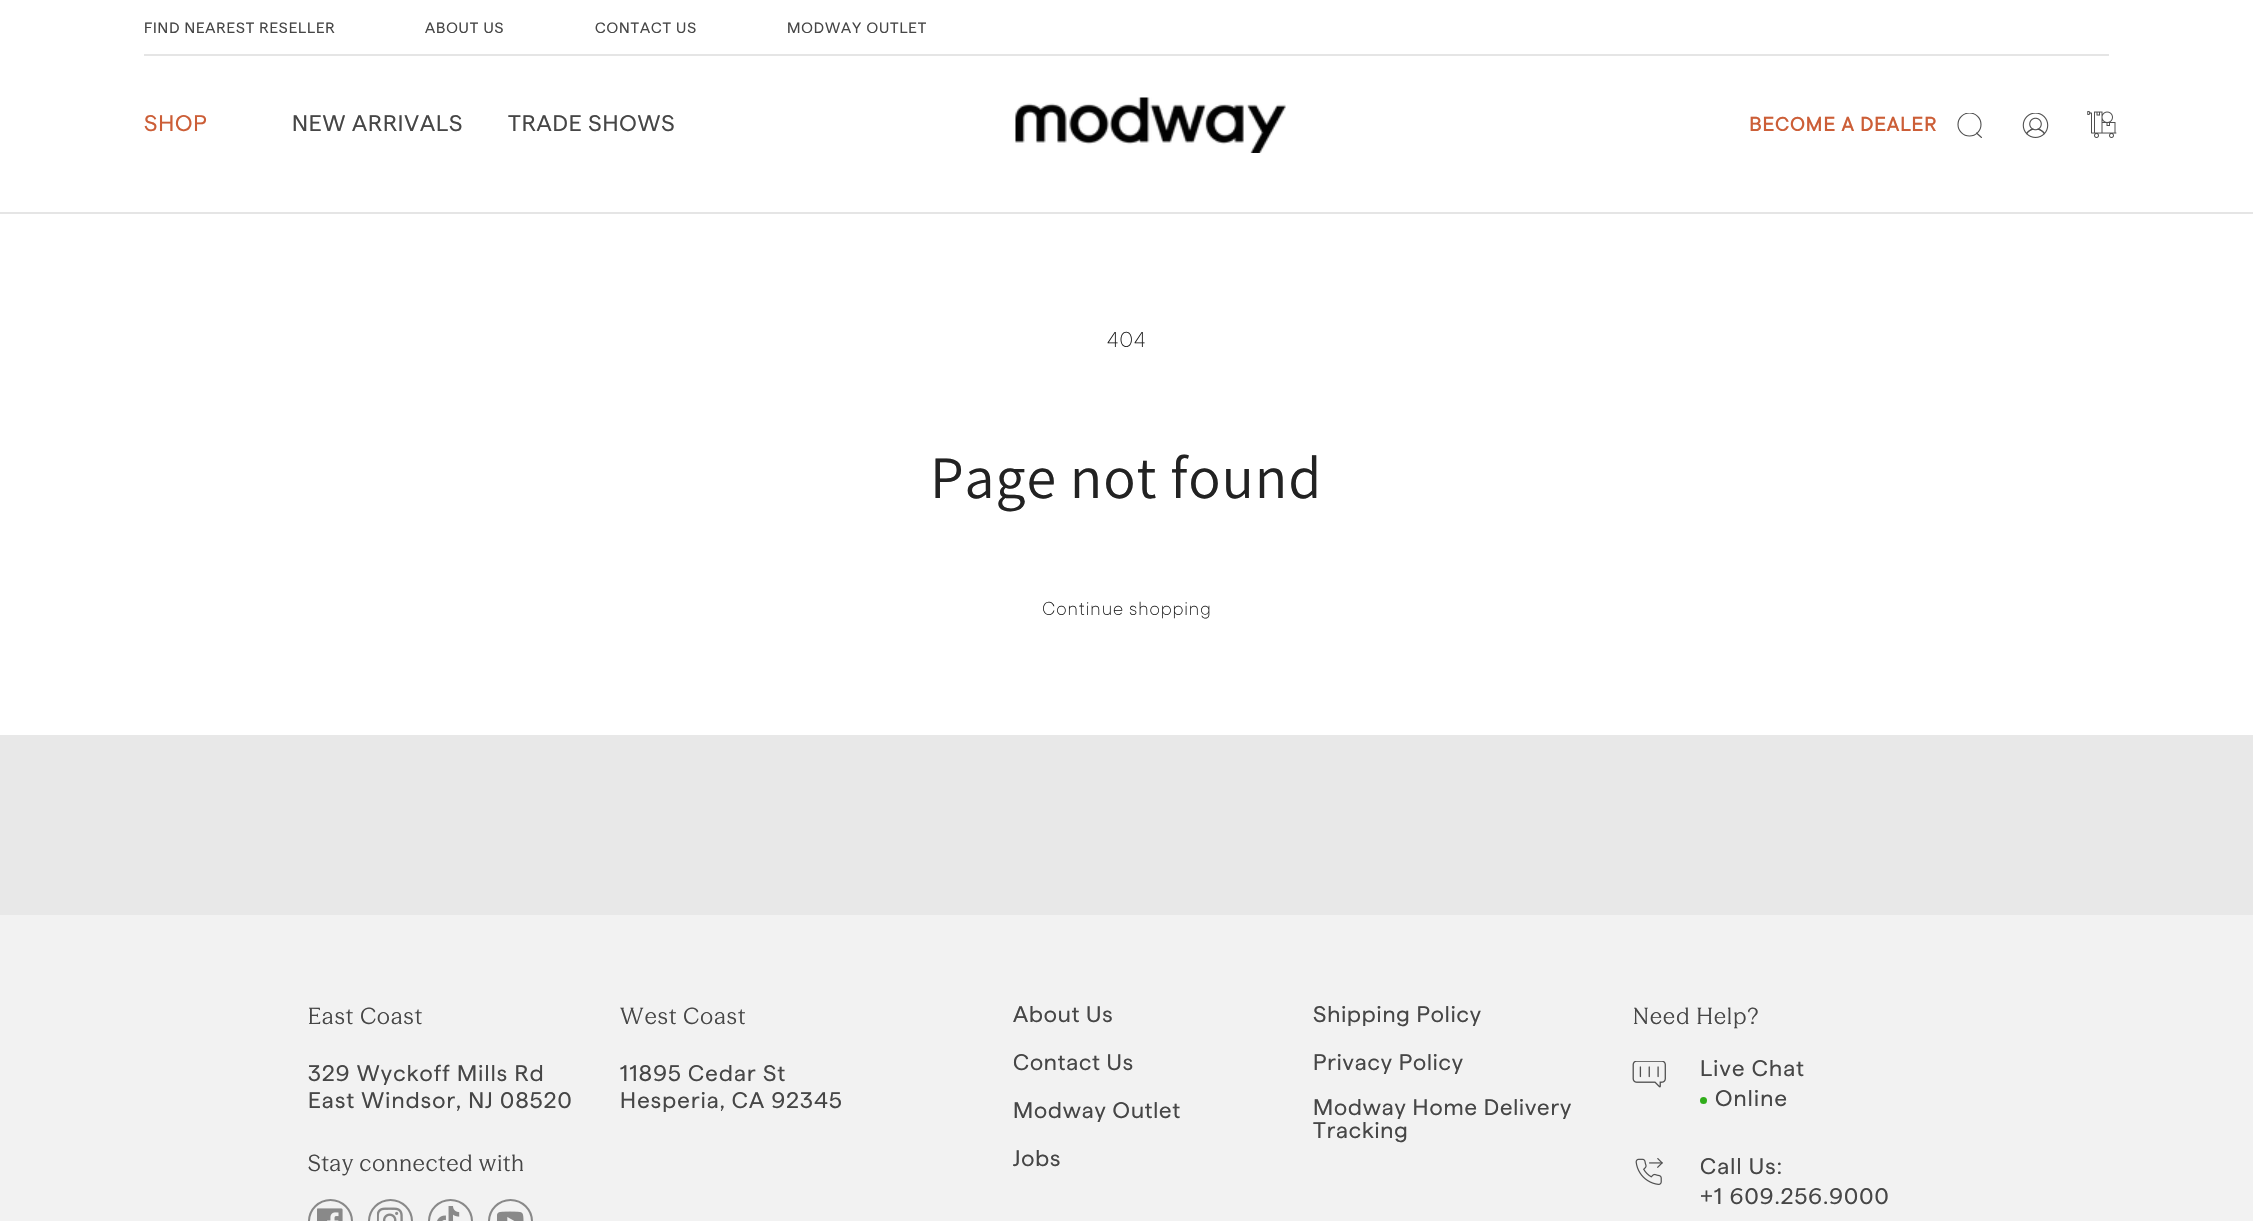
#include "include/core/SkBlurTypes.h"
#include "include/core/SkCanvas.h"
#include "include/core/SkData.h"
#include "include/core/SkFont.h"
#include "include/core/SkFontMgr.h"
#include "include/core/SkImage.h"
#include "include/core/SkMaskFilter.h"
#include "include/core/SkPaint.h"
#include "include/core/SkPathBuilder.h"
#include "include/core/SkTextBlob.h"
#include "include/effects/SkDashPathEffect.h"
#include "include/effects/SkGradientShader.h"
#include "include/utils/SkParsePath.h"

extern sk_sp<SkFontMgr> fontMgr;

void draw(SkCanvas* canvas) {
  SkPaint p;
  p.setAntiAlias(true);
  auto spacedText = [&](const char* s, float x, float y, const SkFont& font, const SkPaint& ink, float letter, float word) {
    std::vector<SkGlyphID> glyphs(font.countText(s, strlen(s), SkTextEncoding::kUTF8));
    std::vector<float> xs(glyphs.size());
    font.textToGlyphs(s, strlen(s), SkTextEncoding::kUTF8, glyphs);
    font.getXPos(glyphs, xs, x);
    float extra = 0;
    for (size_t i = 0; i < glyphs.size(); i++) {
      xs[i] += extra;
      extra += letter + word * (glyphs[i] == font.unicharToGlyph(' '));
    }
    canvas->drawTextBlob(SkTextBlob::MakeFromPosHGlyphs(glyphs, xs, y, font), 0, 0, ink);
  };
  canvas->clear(SK_ColorWHITE);
  p.setColor(SkColorSetRGB(229, 229, 229));
  canvas->drawRect(SkRect::MakeLTRB(144, 54, 2109, 56), p);
  canvas->drawRect(SkRect::MakeLTRB(0, 212, 2253, 214), p);
  canvas->drawImageRect(SkImages::DeferredFromEncodedData(SkData::MakeFromFileName("images/1.png")), SkRect::MakeLTRB(1015, 97, 1286, 153), SkSamplingOptions());
  canvas->save();
  canvas->clipRect(SkRect::MakeLTRB(1955, 113, 1985, 138));
  p.setStyle(SkPaint::kStroke_Style);
  p.setStrokeWidth(1.1f);
  p.setColor(SkColorSetRGB(79, 79, 79));
  canvas->drawCircle(1969.5f, 124.5f, 11.5f, p);
  canvas->restore();
  p.setStrokeCap(SkPaint::kRound_Cap);
  canvas->drawPath(SkPathBuilder().moveTo(1976.5f, 133).lineTo(1981.5f, 137.5f).detach(), p);
  canvas->drawImageRect(SkImages::DeferredFromEncodedData(SkData::MakeFromFileName("images/2.png")), SkRect::MakeLTRB(2022, 113, 2049, 138), SkSamplingOptions());
  canvas->drawImageRect(SkImages::DeferredFromEncodedData(SkData::MakeFromFileName("images/3.png")), SkRect::MakeLTRB(2087, 111, 2117, 138), SkSamplingOptions());
  p.setStyle(SkPaint::kFill_Style);
  p.setColor(SkColorSetRGB(232, 232, 232));
  canvas->drawRect(SkRect::MakeLTRB(0, 735, 2253, 915), p);
  p.setColor(SkColorSetRGB(242, 242, 242));
  canvas->drawRect(SkRect::MakeLTRB(0, 915, 2253, 1221), p);
  p.setStyle(SkPaint::kStroke_Style);
  p.setStrokeWidth(2);
  p.setStrokeCap(SkPaint::kButt_Cap);
  p.setColor(SkColorSetRGB(137, 137, 137));
  canvas->drawCircle(330.5f, 1221.5f, 21.5f, p);
  canvas->drawImageRect(SkImages::DeferredFromEncodedData(SkData::MakeFromFileName("images/4.png")), SkRect::MakeLTRB(317, 1208, 343, 1221), SkSamplingOptions());
  canvas->drawCircle(390.5f, 1221.5f, 21.5f, p);
  canvas->drawImageRect(SkImages::DeferredFromEncodedData(SkData::MakeFromFileName("images/5.png")), SkRect::MakeLTRB(377, 1207, 403, 1221), SkSamplingOptions());
  canvas->drawCircle(450.5f, 1221.5f, 21.5f, p);
  canvas->drawImageRect(SkImages::DeferredFromEncodedData(SkData::MakeFromFileName("images/6.png")), SkRect::MakeLTRB(437, 1206, 460, 1221), SkSamplingOptions());
  canvas->drawCircle(510.5f, 1221.5f, 21.5f, p);
  canvas->drawImageRect(SkImages::DeferredFromEncodedData(SkData::MakeFromFileName("images/7.png")), SkRect::MakeLTRB(497, 1211, 524, 1221), SkSamplingOptions());
  canvas->drawImageRect(SkImages::DeferredFromEncodedData(SkData::MakeFromFileName("images/8.png")), SkRect::MakeLTRB(1632, 1061, 1666, 1088), SkSamplingOptions());
  p.setStyle(SkPaint::kFill_Style);
  p.setColor(SkColorSetRGB(48, 173, 26));
  canvas->drawCircle(1703.5f, 1100.5f, 3.5f, p);
  canvas->drawImageRect(SkImages::DeferredFromEncodedData(SkData::MakeFromFileName("images/9.png")), SkRect::MakeLTRB(1635, 1158, 1663, 1185), SkSamplingOptions());
  SkFont font1(fontMgr->matchFamilyStyle("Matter", SkFontStyle::Normal()), 15);
  font1.setSubpixel(true);
  p.setColor(SkColorSetRGB(70, 70, 70));
  spacedText("FIND NEAREST RESELLER", 144, 33, font1, p, 0.9f, 0);
  spacedText("ABOUT US", 425, 33, font1, p, 0.9f, 0);
  spacedText("CONTACT US", 595, 33, font1, p, 0.9f, 0);
  spacedText("MODWAY OUTLET", 787, 33, font1, p, 0.9f, 0);
  SkFont font2(fontMgr->matchFamilyStyle("Matter", SkFontStyle::Normal()), 22.5f);
  font2.setSubpixel(true);
  p.setColor(SkColorSetRGB(204, 94, 55));
  spacedText("SHOP", 144, 131, font2, p, 0.9f, 0);
  p.setColor(SkColorSetRGB(70, 70, 70));
  spacedText("NEW ARRIVALS", 292, 131, font2, p, 0.9f, 0);
  spacedText("TRADE SHOWS", 508, 131, font2, p, 0.9f, 0);
  SkFont font3(fontMgr->matchFamilyStyle("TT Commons", SkFontStyle(500, SkFontStyle::kNormal_Width, SkFontStyle::kUpright_Slant)), 22.5f);
  font3.setSubpixel(true);
  p.setColor(SkColorSetRGB(204, 94, 55));
  spacedText("BECOME A DEALER", 1749, 131, font3, p, 0.5f, 0);
  SkFont font4(fontMgr->matchFamilyStyle("TT Commons", SkFontStyle(200, SkFontStyle::kNormal_Width, SkFontStyle::kUpright_Slant)), 24);
  font4.setSubpixel(true);
  p.setColor(SkColorSetRGB(34, 34, 34));
  spacedText("404", 1107, 347, font4, p, 0.9f, 0);
  SkFont font5(fontMgr->matchFamilyStyle("Assistant", SkFontStyle::Normal()), 60);
  font5.setSubpixel(true);
  spacedText("Page not found", 930, 498, font5, p, 0.9f, 0);
  SkFont font6(fontMgr->matchFamilyStyle("TT Commons", SkFontStyle(200, SkFontStyle::kNormal_Width, SkFontStyle::kUpright_Slant)), 21);
  font6.setSubpixel(true);
  spacedText("Continue shopping", 1042, 615, font6, p, 0.9f, 0);
  SkFont font7(fontMgr->matchFamilyStyle("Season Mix", SkFontStyle::Normal()), 22.5f);
  font7.setSubpixel(true);
  p.setColor(SkColorSetRGB(70, 70, 70));
  spacedText("East Coast", 308, 1024, font7, p, 1.2f, 0);
  spacedText("329 Wyckoff Mills Rd", 308, 1081, font2, p, 1.2f, 0);
  spacedText("East Windsor, NJ 08520", 308, 1108, font2, p, 1.2f, 0);
  spacedText("Stay connected with", 308, 1171, font7, p, 0.9f, 0);
  spacedText("West Coast", 620, 1024, font7, p, 1.2f, 0);
  spacedText("11895 Cedar St", 620, 1081, font2, p, 1.2f, 0);
  spacedText("Hesperia, CA 92345", 620, 1108, font2, p, 1.2f, 0);
  spacedText("About Us", 1013, 1022, font2, p, 0.9f, 0);
  spacedText("Contact Us", 1013, 1070, font2, p, 0.9f, 0);
  spacedText("Modway Outlet", 1013, 1118, font2, p, 0.9f, 0);
  spacedText("Jobs", 1013, 1166, font2, p, 0.9f, 0);
  spacedText("Shipping Policy", 1313, 1022, font2, p, 0.9f, 0);
  spacedText("Privacy Policy", 1313, 1070, font2, p, 0.9f, 0);
  spacedText("Modway Home Delivery", 1313, 1115, font2, p, 0.9f, 0);
  spacedText("Tracking", 1313, 1138, font2, p, 0.9f, 0);
  spacedText("Need Help?", 1633, 1024, font7, p, 1.2f, 0);
  spacedText("Live Chat", 1700, 1076, font2, p, 1.2f, 0);
  spacedText("Online", 1715, 1106, font2, p, 1.2f, 0);
  spacedText("Call Us:", 1700, 1174, font2, p, 1.2f, 0);
  spacedText("+1 609.256.9000", 1700, 1204, font2, p, 1.2f, 0);
}
